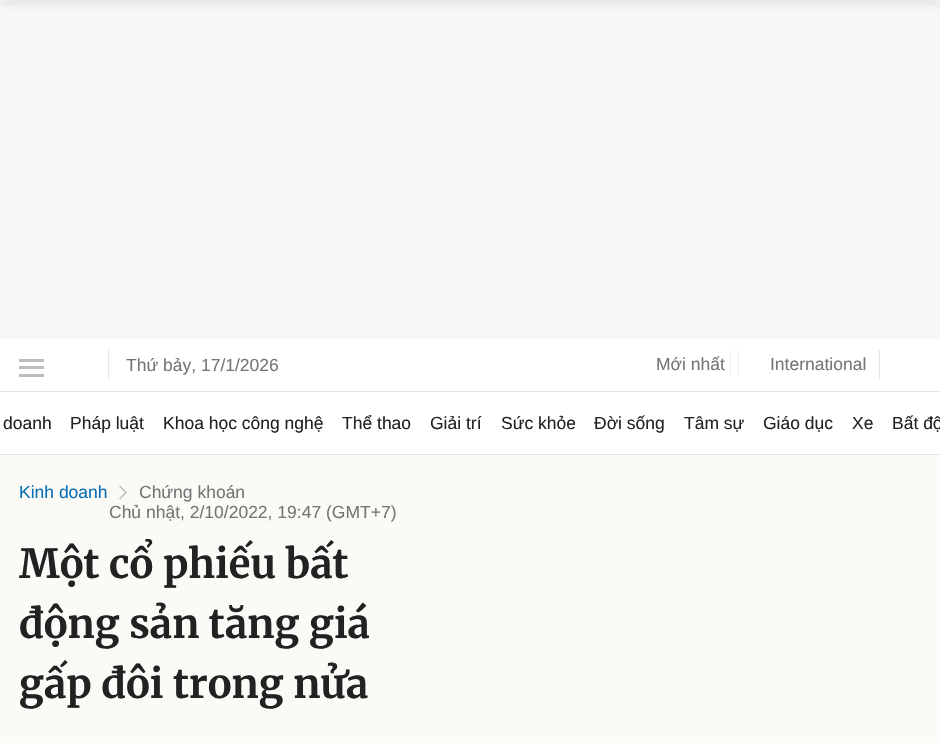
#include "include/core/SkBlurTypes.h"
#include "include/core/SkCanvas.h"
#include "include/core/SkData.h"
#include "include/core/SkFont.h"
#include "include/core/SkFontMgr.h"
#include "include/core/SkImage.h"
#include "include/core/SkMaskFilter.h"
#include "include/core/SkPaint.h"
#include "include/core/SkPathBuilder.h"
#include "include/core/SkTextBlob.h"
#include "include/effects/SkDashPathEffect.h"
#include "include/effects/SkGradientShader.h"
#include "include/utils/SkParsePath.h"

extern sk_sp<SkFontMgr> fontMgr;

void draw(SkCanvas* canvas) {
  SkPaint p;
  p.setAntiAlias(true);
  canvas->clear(SK_ColorWHITE);
  p.setColor(SkColorSetRGB(247, 247, 247));
  canvas->drawRect(SkRect::MakeLTRB(0, 1, 940, 339), p);
  p.setColor(SkColorSetRGB(229, 229, 229));
  canvas->drawRect(SkRect::MakeLTRB(0, 391, 940, 392), p);
  p.setColor(SkColorSetRGB(189, 189, 189));
  canvas->drawRect(SkRect::MakeLTRB(19, 359, 44, 362), p);
  canvas->drawRect(SkRect::MakeLTRB(19, 366, 44, 369), p);
  canvas->drawRect(SkRect::MakeLTRB(19, 374, 44, 377), p);
  p.setColor(SkColorSetRGB(229, 229, 229));
  canvas->drawRect(SkRect::MakeLTRB(108, 348, 109, 380), p);
  p.setColor(SkColorSetRGB(239, 239, 239));
  canvas->drawRect(SkRect::MakeLTRB(738, 351, 739, 376), p);
  canvas->drawRect(SkRect::MakeLTRB(730, 351, 731, 376), p);
  p.setColor(SkColorSetRGB(229, 229, 229));
  canvas->drawRect(SkRect::MakeLTRB(879, 350, 880, 380), p);
  canvas->drawRect(SkRect::MakeLTRB(0, 454, 940, 455), p);
  p.setColor(SkColorSetRGB(252, 250, 246));
  canvas->drawRect(SkRect::MakeLTRB(0, 455, 940, 743), p);
  p.setColor(SkColorSetARGB(26, 0, 0, 0));
  p.setMaskFilter(SkMaskFilter::MakeBlur(kNormal_SkBlurStyle, 5));
  canvas->drawRect(SkRect::MakeLTRB(0, -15, 940, 3), p);
  p.setMaskFilter(nullptr);
  p.setColor(SkColorSetRGB(189, 189, 189));
  canvas->drawPath(SkPathBuilder().moveTo(120, 485.5f).lineTo(127, 492.5f).lineTo(126, 493.5f).lineTo(119, 486.5f).close().detach(), p);
  canvas->drawPath(SkPathBuilder().moveTo(126, 491.5f).lineTo(127, 492.5f).lineTo(120, 499.5f).lineTo(119, 498.5f).close().detach(), p);
  SkFont font1(fontMgr->matchFamilyStyle("Liberation Sans", SkFontStyle::Normal()), 17.5f);
  font1.setSubpixel(true);
  p.setColor(SkColorSetRGB(117, 117, 117));
  canvas->drawString("Thứ bảy, 17/1/2026", 126, 371, font1, p);
  canvas->drawString("Mới nhất", 656, 370, font1, p);
  canvas->drawString("International", 770, 370, font1, p);
  p.setColor(SkColorSetRGB(34, 34, 34));
  canvas->drawString("doanh", 3, 429, font1, p);
  canvas->drawString("Pháp luật", 70, 429, font1, p);
  canvas->drawString("Khoa học công nghệ", 163, 429, font1, p);
  canvas->drawString("Thể thao", 342, 429, font1, p);
  canvas->drawString("Giải trí", 430, 429, font1, p);
  canvas->drawString("Sức khỏe", 501, 429, font1, p);
  canvas->drawString("Đời sống", 594, 429, font1, p);
  canvas->drawString("Tâm sự", 684, 429, font1, p);
  canvas->drawString("Giáo dục", 763, 429, font1, p);
  canvas->drawString("Xe", 852, 429, font1, p);
  canvas->drawString("Bất độ", 892, 429, font1, p);
  p.setColor(SkColorSetRGB(7, 109, 182));
  canvas->drawString("Kinh doanh", 19, 498, font1, p);
  p.setColor(SkColorSetRGB(117, 117, 117));
  canvas->drawString("Chứng khoán", 139, 498, font1, p);
  canvas->drawString("Chủ nhật, 2/10/2022, 19:47 (GMT+7)", 109, 518, font1, p);
  SkFont font2(fontMgr->matchFamilyStyle("Merriweather", SkFontStyle::Bold()), 40);
  font2.setSubpixel(true);
  p.setColor(SkColorSetRGB(34, 34, 34));
  canvas->drawString("Một cổ phiếu bất", 19, 578, font2, p);
  canvas->drawString("động sản tăng giá", 19, 638, font2, p);
  canvas->drawString("gấp đôi trong nửa", 19, 698, font2, p);
}
